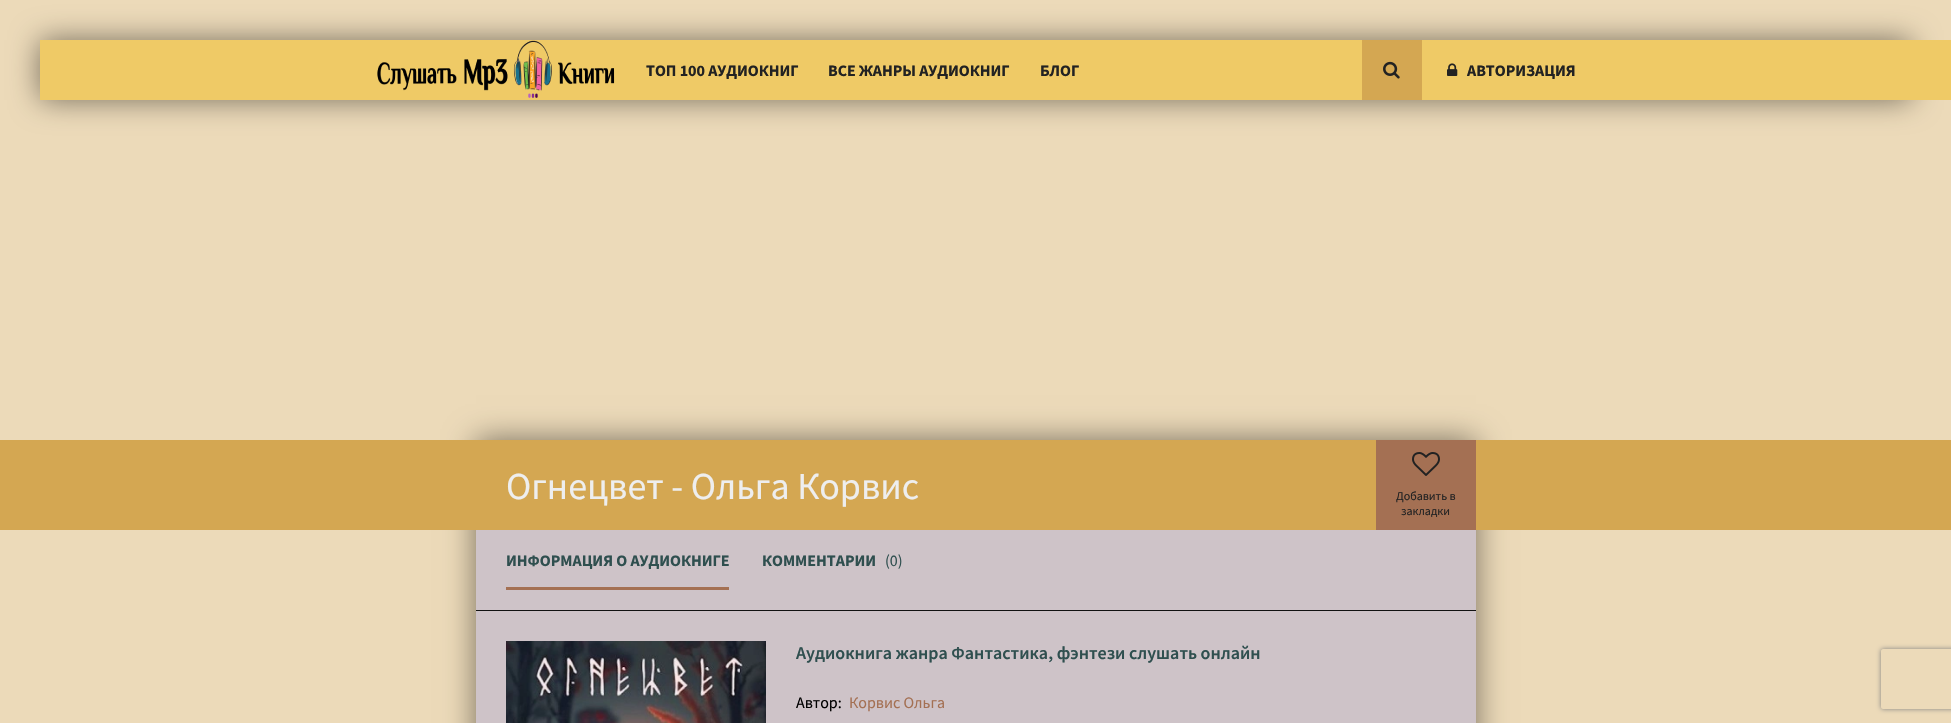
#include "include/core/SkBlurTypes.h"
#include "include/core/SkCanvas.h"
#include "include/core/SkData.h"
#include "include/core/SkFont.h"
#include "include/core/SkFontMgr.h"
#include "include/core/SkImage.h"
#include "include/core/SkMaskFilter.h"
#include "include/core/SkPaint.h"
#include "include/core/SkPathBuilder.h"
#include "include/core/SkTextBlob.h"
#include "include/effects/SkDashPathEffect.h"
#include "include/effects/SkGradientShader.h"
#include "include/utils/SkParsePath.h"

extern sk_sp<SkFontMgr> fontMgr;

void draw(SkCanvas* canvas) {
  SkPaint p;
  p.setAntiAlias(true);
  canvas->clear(SkColorSetRGB(236, 218, 185));
  p.setColor(SkColorSetARGB(128, 0, 0, 0));
  p.setMaskFilter(SkMaskFilter::MakeBlur(kNormal_SkBlurStyle, 15));
  canvas->drawRect(SkRect::MakeLTRB(40, 40, 1911, 100), p);
  p.setMaskFilter(nullptr);
  p.setColor(SkColorSetRGB(239, 202, 102));
  canvas->drawRect(SkRect::MakeLTRB(40, 40, 1951, 100), p);
  canvas->drawImageRect(SkImages::DeferredFromEncodedData(SkData::MakeFromFileName("images/1.png")), SkRect::MakeLTRB(377, 40, 615, 98), SkSamplingOptions());
  p.setColor(SkColorSetRGB(212, 167, 82));
  canvas->drawRect(SkRect::MakeLTRB(1362, 40, 1422, 100), p);
  canvas->drawImageRect(SkImages::DeferredFromEncodedData(SkData::MakeFromFileName("images/2.png")), SkRect::MakeLTRB(1383, 61, 1400, 79), SkSamplingOptions());
  canvas->drawImageRect(SkImages::DeferredFromEncodedData(SkData::MakeFromFileName("images/3.png")), SkRect::MakeLTRB(1447, 63, 1458, 76), SkSamplingOptions());
  p.setColor(SkColorSetARGB(128, 0, 0, 0));
  p.setMaskFilter(SkMaskFilter::MakeBlur(kNormal_SkBlurStyle, 15));
  canvas->drawRect(SkRect::MakeLTRB(476, 440, 1476, 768), p);
  p.setMaskFilter(nullptr);
  p.setColor(SkColorSetRGB(206, 195, 200));
  canvas->drawRect(SkRect::MakeLTRB(476, 530, 1476, 723), p);
  p.setColor(SkColorSetRGB(212, 167, 82));
  canvas->drawRect(SkRect::MakeLTRB(0, 440, 1951, 530), p);
  p.setColor(SkColorSetRGB(164, 112, 83));
  canvas->drawRect(SkRect::MakeLTRB(1376, 440, 1476, 530), p);
  canvas->drawImageRect(SkImages::DeferredFromEncodedData(SkData::MakeFromFileName("images/4.png")), SkRect::MakeLTRB(1412, 452, 1440, 476), SkSamplingOptions());
  p.setColor(SkColorSetRGB(17, 17, 17));
  canvas->drawRect(SkRect::MakeLTRB(476, 610, 1476, 611), p);
  p.setColor(SkColorSetRGB(164, 112, 83));
  canvas->drawRect(SkRect::MakeLTRB(506, 587, 729, 590), p);
  canvas->drawImageRect(SkImages::DeferredFromEncodedData(SkData::MakeFromFileName("images/5.png")), SkRect::MakeLTRB(506, 641, 766, 723), SkSamplingOptions());
  canvas->save();
  canvas->clipPath(SkPathBuilder(SkPathFillType::kEvenOdd).moveTo(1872, 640).lineTo(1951, 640).lineTo(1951, 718).lineTo(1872, 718).close().moveTo(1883, 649).lineTo(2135, 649).cubicTo(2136, 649, 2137, 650, 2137, 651).lineTo(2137, 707).cubicTo(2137, 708, 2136, 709, 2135, 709).lineTo(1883, 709).cubicTo(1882, 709, 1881, 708, 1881, 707).lineTo(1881, 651).cubicTo(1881, 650, 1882, 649, 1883, 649).close().detach(), true);
  p.setColor(SkColorSetRGB(128, 128, 128));
  p.setMaskFilter(SkMaskFilter::MakeBlur(kNormal_SkBlurStyle, 2.5f));
  canvas->drawRoundRect(SkRect::MakeLTRB(1881, 649, 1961, 709), 2, 2, p);
  p.setMaskFilter(nullptr);
  canvas->restore();
  SkFont font1(fontMgr->matchFamilyStyle("Source Sans Pro", SkFontStyle::Bold()), 16);
  font1.setSubpixel(true);
  p.setColor(SkColorSetRGB(34, 34, 34));
  canvas->drawString("ТОП 100 АУДИОКНИГ", 646, 76, font1, p);
  canvas->drawString("ВСЕ ЖАНРЫ АУДИОКНИГ", 828, 76, font1, p);
  canvas->drawString("БЛОГ", 1040, 76, font1, p);
  canvas->drawString("АВТОРИЗАЦИЯ", 1467, 76, font1, p);
  SkFont font2(fontMgr->matchFamilyStyle("Source Sans Pro", SkFontStyle::Normal()), 38);
  font2.setSubpixel(true);
  p.setColor(SkColorSetRGB(238, 238, 238));
  canvas->drawString("Огнецвет - Ольга Корвис", 506, 499, font2, p);
  SkFont font3(fontMgr->matchFamilyStyle("Source Sans Pro", SkFontStyle::Normal()), 12);
  font3.setSubpixel(true);
  p.setColor(SkColorSetRGB(34, 34, 34));
  canvas->drawString("Добавить в", 1396, 500, font3, p);
  canvas->drawString("закладки", 1401, 515, font3, p);
  p.setColor(SkColorSetRGB(47, 79, 79));
  canvas->drawString("ИНФОРМАЦИЯ О АУДИОКНИГЕ", 506, 566, font1, p);
  canvas->drawString("КОММЕНТАРИИ", 762, 566, font1, p);
  SkFont font4(fontMgr->matchFamilyStyle("Source Sans Pro", SkFontStyle::Normal()), 16);
  font4.setSubpixel(true);
  canvas->drawString("(0)", 885, 566, font4, p);
  SkFont font5(fontMgr->matchFamilyStyle("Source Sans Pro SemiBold", SkFontStyle(600, SkFontStyle::kNormal_Width, SkFontStyle::kUpright_Slant)), 18);
  font5.setSubpixel(true);
  canvas->drawString("Аудиокнига жанра Фантастика, фэнтези слушать онлайн", 796, 659, font5, p);
  p.setColor(SK_ColorBLACK);
  canvas->drawString("Автор:", 796, 708, font4, p);
  p.setColor(SkColorSetRGB(164, 112, 83));
  canvas->drawString("Корвис Ольга", 849, 708, font4, p);
}
